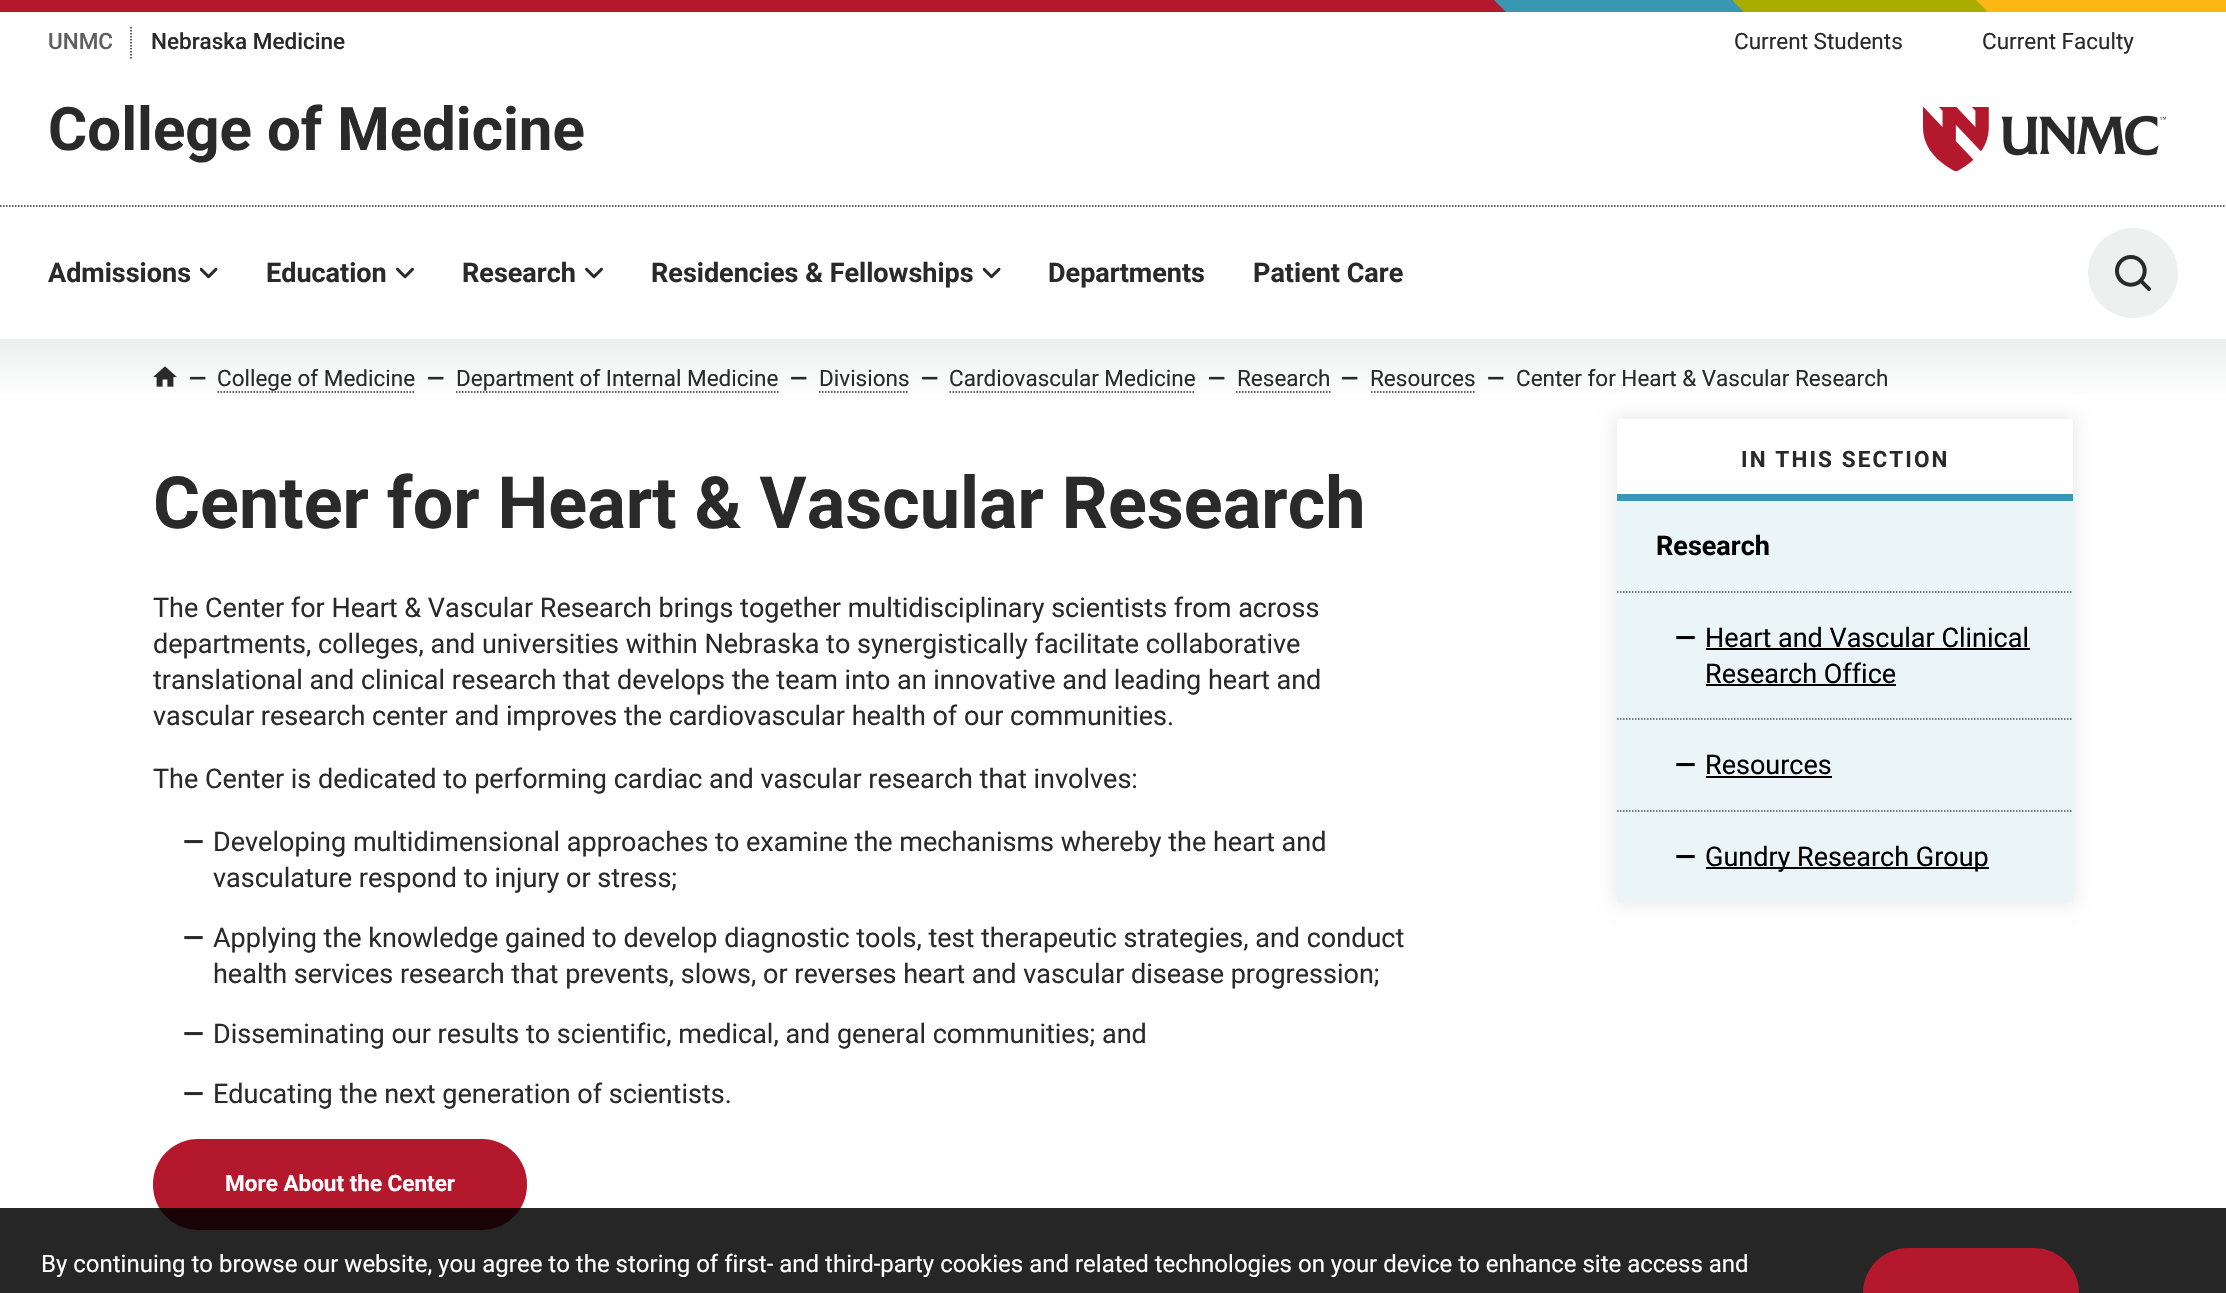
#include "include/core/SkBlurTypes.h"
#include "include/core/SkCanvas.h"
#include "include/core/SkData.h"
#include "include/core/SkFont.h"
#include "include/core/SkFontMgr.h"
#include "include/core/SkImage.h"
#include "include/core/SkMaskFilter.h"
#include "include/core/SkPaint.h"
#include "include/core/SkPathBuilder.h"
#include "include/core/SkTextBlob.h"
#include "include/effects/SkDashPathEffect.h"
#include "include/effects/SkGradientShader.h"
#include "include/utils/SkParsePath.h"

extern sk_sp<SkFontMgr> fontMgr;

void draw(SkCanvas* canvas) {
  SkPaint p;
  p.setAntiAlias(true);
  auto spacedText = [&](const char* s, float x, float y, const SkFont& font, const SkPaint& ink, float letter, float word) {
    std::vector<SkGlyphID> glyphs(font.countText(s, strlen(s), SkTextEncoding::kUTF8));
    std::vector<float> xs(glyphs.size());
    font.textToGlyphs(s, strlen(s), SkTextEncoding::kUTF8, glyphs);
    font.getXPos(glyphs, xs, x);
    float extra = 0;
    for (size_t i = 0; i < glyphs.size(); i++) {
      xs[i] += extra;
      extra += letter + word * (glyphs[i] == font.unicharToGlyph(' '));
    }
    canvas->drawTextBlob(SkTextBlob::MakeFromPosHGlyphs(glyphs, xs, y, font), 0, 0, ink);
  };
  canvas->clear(SK_ColorWHITE);
  p.setColor(SkColorSetRGB(180, 24, 45));
  canvas->drawRect(SkRect::MakeLTRB(0, 0, 1506, 12), p);
  p.setColor(SkColorSetRGB(58, 151, 180));
  canvas->drawPath(SkPathBuilder().moveTo(1494, 0).lineTo(1506, 12).lineTo(2226, 12).lineTo(2226, 0).close().detach(), p);
  p.setColor(SkColorSetRGB(169, 173, 0));
  canvas->drawPath(SkPathBuilder().moveTo(1733, 0).lineTo(1733, 1).lineTo(1744, 12).lineTo(2226, 12).lineTo(2226, 0).close().detach(), p);
  p.setColor(SkColorSetRGB(253, 183, 20));
  canvas->drawPath(SkPathBuilder().moveTo(1976, 0).lineTo(1988, 12).lineTo(2226, 12).lineTo(2226, 0).close().detach(), p);
  p.setStyle(SkPaint::kStroke_Style);
  p.setStrokeWidth(1.5f);
  p.setColor(SkColorSetRGB(42, 42, 42));
  p.setPathEffect(SkDashPathEffect::Make({{1.5f, 1.5f}}, 0));
  canvas->drawPath(SkPathBuilder().moveTo(131, 27).lineTo(131, 58.5f).detach(), p);
  p.setPathEffect(nullptr);
  canvas->drawImageRect(SkImages::DeferredFromEncodedData(SkData::MakeFromFileName("images/1.png")), SkRect::MakeLTRB(1923, 107, 2166, 171), SkSamplingOptions());
  p.setPathEffect(SkDashPathEffect::Make({{1.5f, 1.5f}}, 0));
  canvas->drawPath(SkPathBuilder().moveTo(0, 206).lineTo(2226, 206).detach(), p);
  p.setPathEffect(nullptr);
  canvas->drawImageRect(SkImages::DeferredFromEncodedData(SkData::MakeFromFileName("images/2.png")), SkRect::MakeLTRB(200, 267, 218, 279), SkSamplingOptions());
  canvas->drawImageRect(SkImages::DeferredFromEncodedData(SkData::MakeFromFileName("images/3.png")), SkRect::MakeLTRB(396, 267, 414, 279), SkSamplingOptions());
  canvas->drawImageRect(SkImages::DeferredFromEncodedData(SkData::MakeFromFileName("images/3.png")), SkRect::MakeLTRB(585, 267, 603, 279), SkSamplingOptions());
  canvas->drawImageRect(SkImages::DeferredFromEncodedData(SkData::MakeFromFileName("images/2.png")), SkRect::MakeLTRB(983, 267, 1001, 279), SkSamplingOptions());
  p.setStyle(SkPaint::kFill_Style);
  p.setColor(SkColorSetRGB(238, 239, 239));
  canvas->drawCircle(2133, 273, 45, p);
  canvas->drawImageRect(SkImages::DeferredFromEncodedData(SkData::MakeFromFileName("images/4.png")), SkRect::MakeLTRB(2115, 255, 2151, 291), SkSamplingOptions());
  {
    const SkColor colors[] = {SkColorSetRGB(238, 239, 239), SK_ColorWHITE};
    const float stops[] = {0, 0.06f};
    const SkPoint ends[] = {{1113, 339}, {1113, 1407}};
    p.setShader(SkGradientShader::MakeLinear(ends, colors, stops, 2, SkTileMode::kClamp));
    p.setAlpha(255);
  }
  canvas->drawRect(SkRect::MakeLTRB(0, 339, 2226, 394), p);
  canvas->drawImageRect(SkImages::DeferredFromEncodedData(SkData::MakeFromFileName("images/5.png")), SkRect::MakeLTRB(153, 366, 177, 387), SkSamplingOptions());
  p.setStyle(SkPaint::kStroke_Style);
  p.setShader(nullptr);
  p.setColor(SkColorSetRGB(42, 42, 42));
  p.setPathEffect(SkDashPathEffect::Make({{1.5f, 1.5f}}, 0));
  canvas->drawPath(SkPathBuilder().moveTo(217.5f, 392).lineTo(415.5f, 392).detach(), p);
  p.setPathEffect(nullptr);
  p.setPathEffect(SkDashPathEffect::Make({{1.5f, 1.5f}}, 0));
  canvas->drawPath(SkPathBuilder().moveTo(456, 392).lineTo(778.5f, 392).detach(), p);
  p.setPathEffect(nullptr);
  p.setPathEffect(SkDashPathEffect::Make({{1.5f, 1.5f}}, 0));
  canvas->drawPath(SkPathBuilder().moveTo(819, 392).lineTo(909, 392).detach(), p);
  p.setPathEffect(nullptr);
  p.setPathEffect(SkDashPathEffect::Make({{1.5f, 1.5f}}, 0));
  canvas->drawPath(SkPathBuilder().moveTo(949.5f, 392).lineTo(1195.5f, 392).detach(), p);
  p.setPathEffect(nullptr);
  p.setPathEffect(SkDashPathEffect::Make({{1.5f, 1.5f}}, 0));
  canvas->drawPath(SkPathBuilder().moveTo(1236, 392).lineTo(1330.5f, 392).detach(), p);
  p.setPathEffect(nullptr);
  p.setPathEffect(SkDashPathEffect::Make({{1.5f, 1.5f}}, 0));
  canvas->drawPath(SkPathBuilder().moveTo(1371, 392).lineTo(1476, 392).detach(), p);
  p.setPathEffect(nullptr);
  p.setStyle(SkPaint::kFill_Style);
  p.setColor(SkColorSetARGB(20, 0, 0, 0));
  p.setMaskFilter(SkMaskFilter::MakeBlur(kNormal_SkBlurStyle, 7.5f));
  canvas->drawRect(SkRect::MakeLTRB(1614, 416, 2076, 905), p);
  p.setMaskFilter(nullptr);
  p.setColor(SK_ColorWHITE);
  canvas->drawRect(SkRect::MakeLTRB(1617, 419, 2073, 494), p);
  p.setColor(SkColorSetRGB(58, 151, 180));
  canvas->drawRect(SkRect::MakeLTRB(1617, 494, 2073, 501), p);
  p.setColor(SkColorSetRGB(235, 245, 248));
  canvas->drawRect(SkRect::MakeLTRB(1617, 501, 2073, 902), p);
  p.setStyle(SkPaint::kStroke_Style);
  p.setColor(SkColorSetRGB(84, 88, 90));
  p.setPathEffect(SkDashPathEffect::Make({{1.5f, 1.5f}}, 0));
  canvas->drawPath(SkPathBuilder().moveTo(1617, 592).lineTo(2073, 592).detach(), p);
  p.setPathEffect(nullptr);
  p.setPathEffect(SkDashPathEffect::Make({{1.5f, 1.5f}}, 0));
  canvas->drawPath(SkPathBuilder().moveTo(1617, 719).lineTo(2073, 719).detach(), p);
  p.setPathEffect(nullptr);
  p.setStyle(SkPaint::kFill_Style);
  p.setColor(SK_ColorBLACK);
  canvas->drawRect(SkRect::MakeLTRB(1706, 648, 2030, 650), p);
  canvas->drawRect(SkRect::MakeLTRB(1706, 684, 1896, 686), p);
  p.setStyle(SkPaint::kStroke_Style);
  p.setColor(SkColorSetRGB(84, 88, 90));
  p.setPathEffect(SkDashPathEffect::Make({{1.5f, 1.5f}}, 0));
  canvas->drawPath(SkPathBuilder().moveTo(1617, 811).lineTo(2073, 811).detach(), p);
  p.setPathEffect(nullptr);
  p.setStyle(SkPaint::kFill_Style);
  p.setColor(SK_ColorBLACK);
  canvas->drawRect(SkRect::MakeLTRB(1706, 776, 1832, 778), p);
  canvas->drawRect(SkRect::MakeLTRB(1706, 867, 1989, 869), p);
  p.setColor(SkColorSetRGB(180, 24, 45));
  canvas->drawRoundRect(SkRect::MakeLTRB(153, 1139, 527, 1230), 45, 45, p);
  p.setColor(SkColorSetARGB(217, 0, 0, 0));
  canvas->drawRect(SkRect::MakeLTRB(0, 1208, 2226, 1293), p);
  p.setColor(SkColorSetRGB(180, 24, 45));
  canvas->drawRoundRect(SkRect::MakeLTRB(1863, 1248, 2079, 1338), 45, 45, p);
  SkFont font1(fontMgr->matchFamilyStyle("Roboto", SkFontStyle(500, SkFontStyle::kNormal_Width, SkFontStyle::kUpright_Slant)), 22.5f);
  font1.setSubpixel(true);
  p.setColor(SkColorSetRGB(95, 95, 95));
  canvas->drawString("UNMC", 48, 49, font1, p);
  p.setColor(SkColorSetRGB(42, 42, 42));
  canvas->drawString("Nebraska Medicine", 151, 49, font1, p);
  SkFont font2(fontMgr->matchFamilyStyle("Roboto", SkFontStyle::Normal()), 22.5f);
  font2.setSubpixel(true);
  canvas->drawString("Current Students", 1734, 49, font2, p);
  canvas->drawString("Current Faculty", 1982, 49, font2, p);
  SkFont font3(fontMgr->matchFamilyStyle("Roboto", SkFontStyle::Bold()), 60);
  font3.setSubpixel(true);
  canvas->drawString("College of Medicine", 48, 150, font3, p);
  SkFont font4(fontMgr->matchFamilyStyle("Roboto", SkFontStyle::Bold()), 27);
  font4.setSubpixel(true);
  canvas->drawString("Admissions", 48, 282, font4, p);
  canvas->drawString("Education", 266, 282, font4, p);
  canvas->drawString("Research", 462, 282, font4, p);
  canvas->drawString("Residencies & Fellowships", 651, 282, font4, p);
  canvas->drawString("Departments", 1048, 282, font4, p);
  canvas->drawString("Patient Care", 1253, 282, font4, p);
  SkFont font5(fontMgr->matchFamilyStyle("Roboto", SkFontStyle::Bold()), 22.5f);
  font5.setSubpixel(true);
  canvas->drawString("—", 189, 386, font5, p);
  canvas->drawString("College of Medicine", 217, 386, font2, p);
  canvas->drawString("—", 427, 386, font5, p);
  canvas->drawString("Department of Internal Medicine", 456, 386, font2, p);
  canvas->drawString("—", 790, 386, font5, p);
  canvas->drawString("Divisions", 819, 386, font2, p);
  canvas->drawString("—", 921, 386, font5, p);
  canvas->drawString("Cardiovascular Medicine", 949, 386, font2, p);
  canvas->drawString("—", 1208, 386, font5, p);
  canvas->drawString("Research", 1237, 386, font2, p);
  canvas->drawString("—", 1341, 386, font5, p);
  canvas->drawString("Resources", 1370, 386, font2, p);
  canvas->drawString("—", 1487, 386, font5, p);
  canvas->drawString("Center for Heart & Vascular Research", 1516, 386, font2, p);
  SkFont font6(fontMgr->matchFamilyStyle("Roboto", SkFontStyle::Bold()), 72);
  font6.setSubpixel(true);
  canvas->drawString("Center for Heart & Vascular Research", 153, 528, font6, p);
  spacedText("IN THIS SECTION", 1741, 467, font5, p, 2.1f, 0);
  p.setColor(SK_ColorBLACK);
  canvas->drawString("Research", 1656, 555, font4, p);
  canvas->drawString("—", 1675, 647, font4, p);
  SkFont font7(fontMgr->matchFamilyStyle("Roboto", SkFontStyle::Normal()), 27);
  font7.setSubpixel(true);
  canvas->drawString("Heart and Vascular Clinical", 1705, 647, font7, p);
  canvas->drawString("Research Office", 1705, 683, font7, p);
  canvas->drawString("—", 1675, 774, font4, p);
  canvas->drawString("Resources", 1705, 774, font7, p);
  canvas->drawString("—", 1675, 866, font4, p);
  canvas->drawString("Gundry Research Group", 1705, 866, font7, p);
  p.setColor(SkColorSetRGB(42, 42, 42));
  canvas->drawString("The Center for Heart & Vascular Research brings together multidisciplinary scientists from across", 153, 617, font7, p);
  canvas->drawString("departments, colleges, and universities within Nebraska to synergistically facilitate collaborative", 153, 653, font7, p);
  canvas->drawString("translational and clinical research that develops the team into an innovative and leading heart and", 153, 689, font7, p);
  canvas->drawString("vascular research center and improves the cardiovascular health of our communities.", 153, 725, font7, p);
  canvas->drawString("The Center is dedicated to performing cardiac and vascular research that involves:", 153, 788, font7, p);
  canvas->drawString("—", 183, 851, font4, p);
  canvas->drawString("Developing multidimensional approaches to examine the mechanisms whereby the heart and", 213, 851, font7, p);
  canvas->drawString("vasculature respond to injury or stress;", 213, 887, font7, p);
  canvas->drawString("—", 183, 947, font4, p);
  canvas->drawString("Applying the knowledge gained to develop diagnostic tools, test therapeutic strategies, and conduct", 213, 947, font7, p);
  canvas->drawString("health services research that prevents, slows, or reverses heart and vascular disease progression;", 213, 983, font7, p);
  canvas->drawString("—", 183, 1043, font4, p);
  canvas->drawString("Disseminating our results to scientific, medical, and general communities; and", 213, 1043, font7, p);
  canvas->drawString("—", 183, 1103, font4, p);
  canvas->drawString("Educating the next generation of scientists.", 213, 1103, font7, p);
  p.setColor(SK_ColorWHITE);
  canvas->drawString("More About the Center", 225, 1191, font5, p);
  SkFont font8(fontMgr->matchFamilyStyle("Roboto", SkFontStyle::Normal()), 24);
  font8.setSubpixel(true);
  canvas->drawString("By continuing to browse our website, you agree to the storing of first- and third-party cookies and related technologies on your device to enhance site access and", 41, 1272, font8, p);
}
